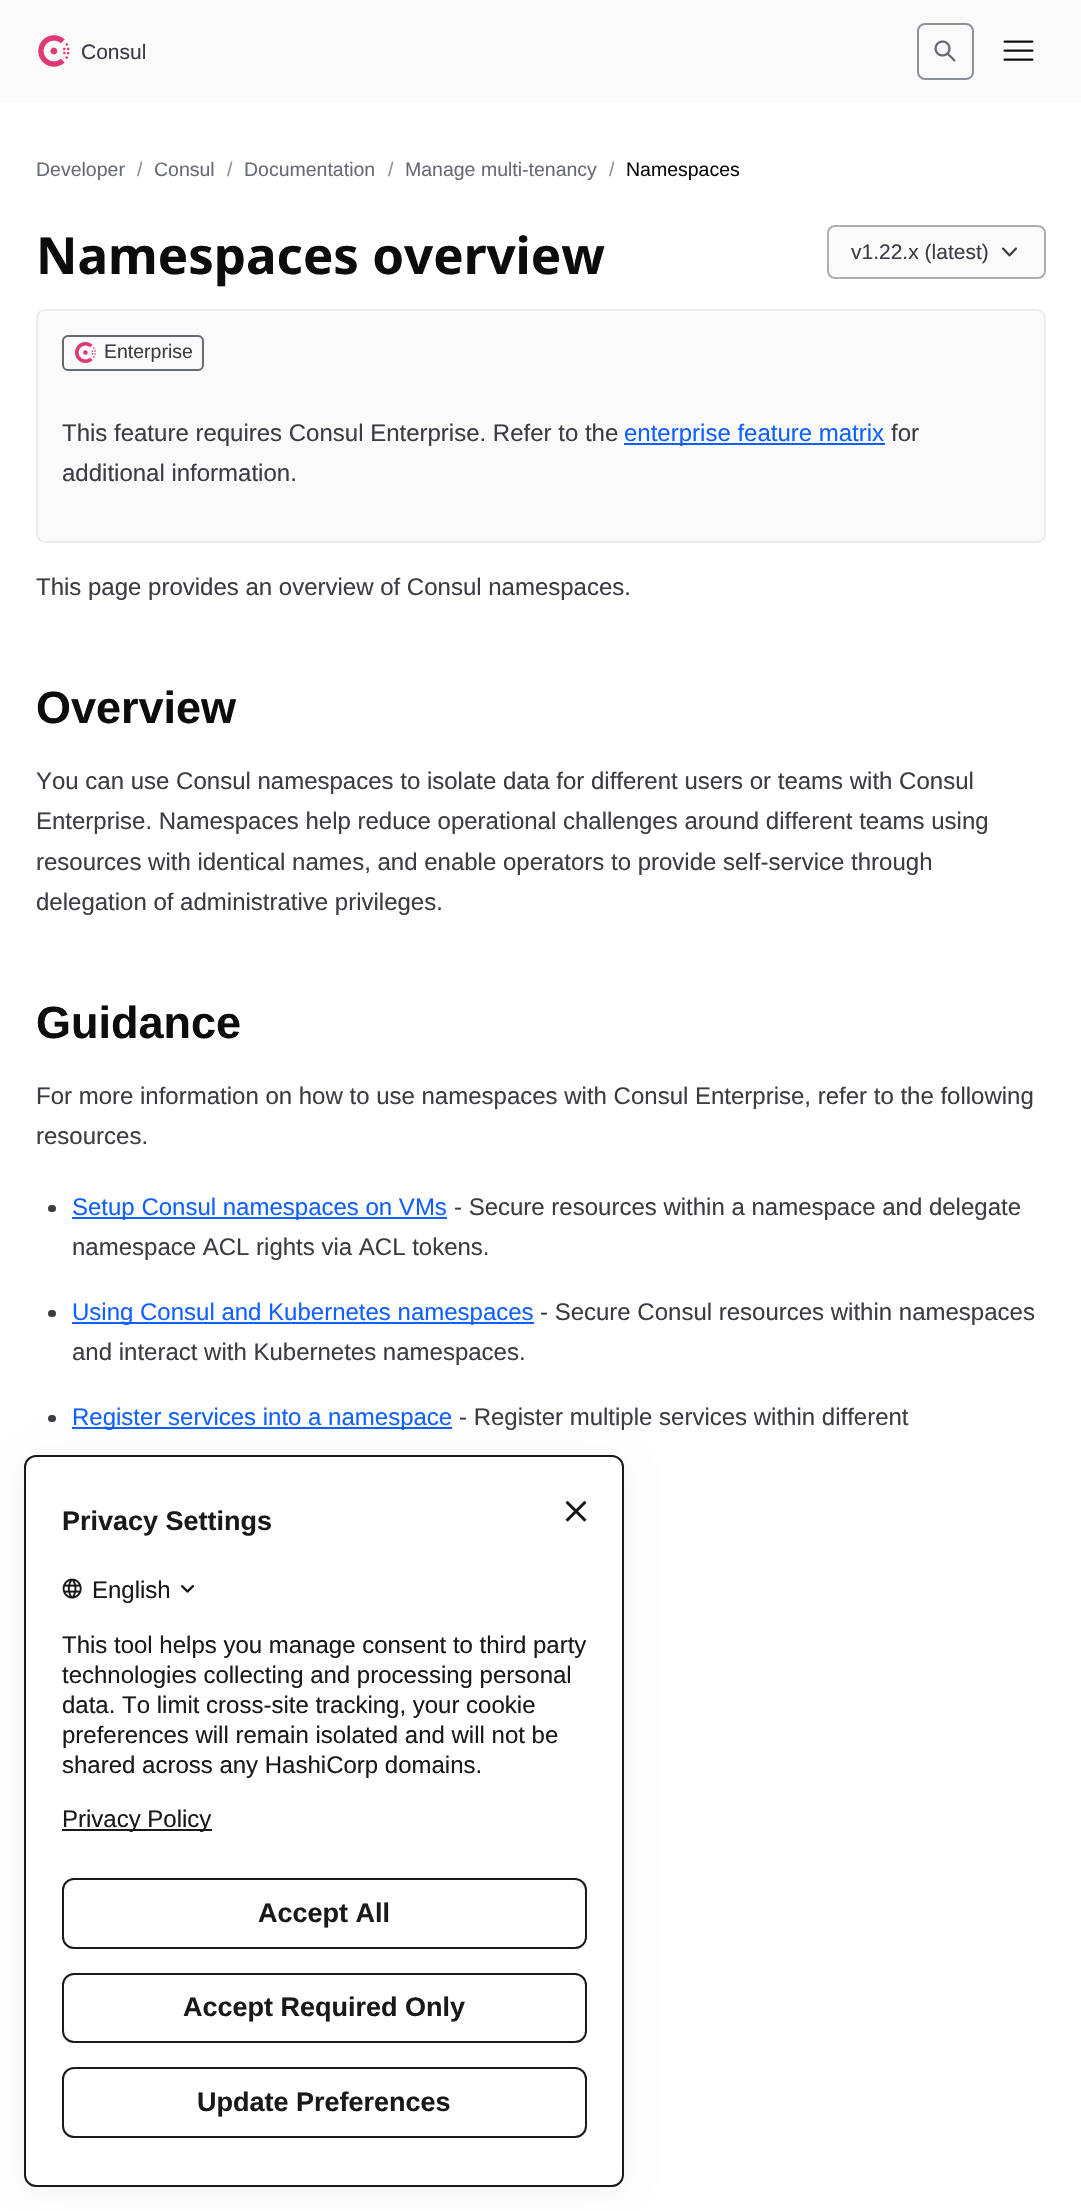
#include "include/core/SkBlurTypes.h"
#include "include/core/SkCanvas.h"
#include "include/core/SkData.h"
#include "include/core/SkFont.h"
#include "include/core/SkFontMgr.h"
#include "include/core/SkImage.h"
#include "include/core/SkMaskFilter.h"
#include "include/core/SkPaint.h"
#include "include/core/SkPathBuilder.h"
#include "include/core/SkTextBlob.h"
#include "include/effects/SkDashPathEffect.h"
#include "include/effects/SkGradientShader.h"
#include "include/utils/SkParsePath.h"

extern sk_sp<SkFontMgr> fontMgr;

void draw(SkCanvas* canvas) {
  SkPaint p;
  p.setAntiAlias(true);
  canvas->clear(SK_ColorWHITE);
  p.setColor(SkColorSetRGB(250, 250, 250));
  canvas->drawRect(SkRect::MakeLTRB(0, 0, 1081, 102), p);
  canvas->drawImageRect(SkImages::DeferredFromEncodedData(SkData::MakeFromFileName("images/1.png")), SkRect::MakeLTRB(38, 35, 70, 67), SkSamplingOptions());
  p.setStyle(SkPaint::kStroke_Style);
  p.setStrokeWidth(2);
  p.setColor(SkColorSetRGB(140, 144, 156));
  canvas->drawRoundRect(SkRect::MakeLTRB(918, 24, 973, 79), 7, 7, p);
  canvas->drawImageRect(SkImages::DeferredFromEncodedData(SkData::MakeFromFileName("images/2.png")), SkRect::MakeLTRB(934, 40, 956, 62), SkSamplingOptions());
  canvas->drawImageRect(SkImages::DeferredFromEncodedData(SkData::MakeFromFileName("images/3.png")), SkRect::MakeLTRB(1003, 40, 1034, 61), SkSamplingOptions());
  p.setStyle(SkPaint::kFill_Style);
  p.setColor(SkColorSetRGB(250, 250, 250));
  canvas->drawRoundRect(SkRect::MakeLTRB(827, 225, 1046, 279), 8, 8, p);
  p.setStyle(SkPaint::kStroke_Style);
  p.setColor(SkColorSetARGB(102, 59, 61, 69));
  canvas->drawRoundRect(SkRect::MakeLTRB(828, 226, 1045, 278), 7, 7, p);
  canvas->drawImageRect(SkImages::DeferredFromEncodedData(SkData::MakeFromFileName("images/4.png")), SkRect::MakeLTRB(1002, 247, 1017, 257), SkSamplingOptions());
  p.setStyle(SkPaint::kFill_Style);
  p.setColor(SkColorSetRGB(250, 250, 250));
  canvas->drawRoundRect(SkRect::MakeLTRB(37, 310, 1045, 542), 8, 8, p);
  p.setStyle(SkPaint::kStroke_Style);
  p.setColor(SkColorSetRGB(235, 236, 237));
  canvas->drawRoundRect(SkRect::MakeLTRB(37, 310, 1045, 542), 8, 8, p);
  p.setColor(SkColorSetRGB(101, 106, 118));
  canvas->drawRoundRect(SkRect::MakeLTRB(63, 336, 203, 370), 5, 5, p);
  canvas->drawImageRect(SkImages::DeferredFromEncodedData(SkData::MakeFromFileName("images/5.png")), SkRect::MakeLTRB(75, 342, 96, 363), SkSamplingOptions());
  p.setStyle(SkPaint::kFill_Style);
  p.setColor(SkColorSetRGB(16, 96, 255));
  canvas->drawRect(SkRect::MakeLTRB(624, 443, 885, 445), p);
  p.setColor(SkColorSetRGB(59, 61, 69));
  canvas->drawRoundRect(SkRect::MakeLTRB(48, 1205, 56, 1212), 3.5f, 3.5f, p);
  p.setColor(SkColorSetRGB(16, 96, 255));
  canvas->drawRect(SkRect::MakeLTRB(72, 1217, 447, 1219), p);
  p.setColor(SkColorSetRGB(59, 61, 69));
  canvas->drawRoundRect(SkRect::MakeLTRB(48, 1310, 56, 1317), 3.5f, 3.5f, p);
  p.setColor(SkColorSetRGB(16, 96, 255));
  canvas->drawRect(SkRect::MakeLTRB(72, 1322, 534, 1324), p);
  p.setColor(SkColorSetRGB(59, 61, 69));
  canvas->drawRoundRect(SkRect::MakeLTRB(48, 1415, 56, 1422), 3.5f, 3.5f, p);
  p.setColor(SkColorSetRGB(16, 96, 255));
  canvas->drawRect(SkRect::MakeLTRB(72, 1427, 452, 1429), p);
  canvas->save();
  canvas->clipPath(SkPathBuilder(SkPathFillType::kEvenOdd).moveTo(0, 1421).lineTo(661, 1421).lineTo(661, 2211).lineTo(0, 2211).close().moveTo(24, 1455).lineTo(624, 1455).lineTo(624, 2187).lineTo(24, 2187).close().detach(), true);
  p.setColor(SkColorSetARGB(26, 1, 1, 63));
  p.setMaskFilter(SkMaskFilter::MakeBlur(kNormal_SkBlurStyle, 14));
  canvas->drawRect(SkRect::MakeLTRB(30, 1464, 618, 2184), p);
  p.setMaskFilter(nullptr);
  canvas->restore();
  p.setStyle(SkPaint::kStroke_Style);
  p.setColor(SkColorSetRGB(23, 25, 26));
  canvas->drawRoundRect(SkRect::MakeLTRB(25, 1456, 623, 2186), 11, 11, p);
  canvas->drawImageRect(SkImages::DeferredFromEncodedData(SkData::MakeFromFileName("images/6.png")), SkRect::MakeLTRB(565, 1500, 587, 1522), SkSamplingOptions());
  canvas->drawImageRect(SkImages::DeferredFromEncodedData(SkData::MakeFromFileName("images/7.png")), SkRect::MakeLTRB(62, 1578, 82, 1599), SkSamplingOptions());
  canvas->drawImageRect(SkImages::DeferredFromEncodedData(SkData::MakeFromFileName("images/8.png")), SkRect::MakeLTRB(181, 1585, 195, 1593), SkSamplingOptions());
  p.setStyle(SkPaint::kFill_Style);
  canvas->drawRect(SkRect::MakeLTRB(62, 1829, 212, 1831), p);
  p.setStyle(SkPaint::kStroke_Style);
  canvas->drawRoundRect(SkRect::MakeLTRB(63, 1879, 586, 1948), 11, 11, p);
  canvas->drawRoundRect(SkRect::MakeLTRB(63, 1974, 586, 2042), 11, 11, p);
  canvas->drawRoundRect(SkRect::MakeLTRB(63, 2068, 586, 2137), 11, 11, p);
  SkFont font1(fontMgr->matchFamilyStyle("Liberation Sans", SkFontStyle::Normal()), 21);
  font1.setSubpixel(true);
  p.setStyle(SkPaint::kFill_Style);
  p.setColor(SkColorSetRGB(59, 61, 69));
  canvas->drawString("Consul", 81, 59, font1, p);
  SkFont font2(fontMgr->matchFamilyStyle("Liberation Sans", SkFontStyle::Normal()), 19.5f);
  font2.setSubpixel(true);
  p.setColor(SkColorSetRGB(101, 106, 118));
  canvas->drawString("Developer", 36, 176, font2, p);
  p.setColor(SkColorSetRGB(140, 144, 156));
  canvas->drawString("/", 137, 176, font2, p);
  p.setColor(SkColorSetRGB(101, 106, 118));
  canvas->drawString("Consul", 154, 176, font2, p);
  p.setColor(SkColorSetRGB(140, 144, 156));
  canvas->drawString("/", 227, 176, font2, p);
  p.setColor(SkColorSetRGB(101, 106, 118));
  canvas->drawString("Documentation", 244, 176, font2, p);
  p.setColor(SkColorSetRGB(140, 144, 156));
  canvas->drawString("/", 388, 176, font2, p);
  p.setColor(SkColorSetRGB(101, 106, 118));
  canvas->drawString("Manage multi-tenancy", 405, 176, font2, p);
  p.setColor(SkColorSetRGB(140, 144, 156));
  canvas->drawString("/", 609, 176, font2, p);
  p.setColor(SkColorSetRGB(12, 12, 14));
  canvas->drawString("Namespaces", 626, 176, font2, p);
  SkFont font3(fontMgr->matchFamilyStyle("Noto Sans", SkFontStyle::Bold()), 51);
  font3.setSubpixel(true);
  canvas->drawString("Namespaces overview", 36, 274, font3, p);
  p.setColor(SkColorSetRGB(59, 61, 69));
  canvas->drawString("v1.22.x (latest)", 851, 259, font1, p);
  canvas->drawString("Enterprise", 104, 358, font2, p);
  SkFont font4(fontMgr->matchFamilyStyle("Liberation Sans", SkFontStyle::Normal()), 24);
  font4.setSubpixel(true);
  canvas->drawString("This feature requires Consul Enterprise. Refer to the", 62, 441, font4, p);
  p.setColor(SkColorSetRGB(16, 96, 255));
  canvas->drawString("enterprise feature matrix", 624, 441, font4, p);
  p.setColor(SkColorSetRGB(59, 61, 69));
  canvas->drawString("for", 891, 441, font4, p);
  canvas->drawString("additional information.", 62, 481, font4, p);
  canvas->drawString("This page provides an overview of Consul namespaces.", 36, 595, font4, p);
  SkFont font5(fontMgr->matchFamilyStyle("Liberation Sans", SkFontStyle::Bold()), 45);
  font5.setSubpixel(true);
  p.setColor(SkColorSetRGB(12, 12, 14));
  canvas->drawString("Overview", 36, 723, font5, p);
  p.setColor(SkColorSetRGB(59, 61, 69));
  canvas->drawString("You can use Consul namespaces to isolate data for different users or teams with Consul", 36, 789, font4, p);
  canvas->drawString("Enterprise. Namespaces help reduce operational challenges around different teams using", 36, 829, font4, p);
  canvas->drawString("resources with identical names, and enable operators to provide self-service through", 36, 870, font4, p);
  canvas->drawString("delegation of administrative privileges.", 36, 910, font4, p);
  p.setColor(SkColorSetRGB(12, 12, 14));
  canvas->drawString("Guidance", 36, 1038, font5, p);
  p.setColor(SkColorSetRGB(59, 61, 69));
  canvas->drawString("For more information on how to use namespaces with Consul Enterprise, refer to the following", 36, 1104, font4, p);
  canvas->drawString("resources.", 36, 1144, font4, p);
  p.setColor(SkColorSetRGB(16, 96, 255));
  canvas->drawString("Setup Consul namespaces on VMs", 72, 1215, font4, p);
  p.setColor(SkColorSetRGB(59, 61, 69));
  canvas->drawString("- Secure resources within a namespace and delegate", 454, 1215, font4, p);
  canvas->drawString("namespace ACL rights via ACL tokens.", 72, 1255, font4, p);
  p.setColor(SkColorSetRGB(16, 96, 255));
  canvas->drawString("Using Consul and Kubernetes namespaces", 72, 1320, font4, p);
  p.setColor(SkColorSetRGB(59, 61, 69));
  canvas->drawString("- Secure Consul resources within namespaces", 540, 1320, font4, p);
  canvas->drawString("and interact with Kubernetes namespaces.", 72, 1360, font4, p);
  p.setColor(SkColorSetRGB(16, 96, 255));
  canvas->drawString("Register services into a namespace", 72, 1425, font4, p);
  p.setColor(SkColorSetRGB(59, 61, 69));
  canvas->drawString("- Register multiple services within different", 459, 1425, font4, p);
  SkFont font6(fontMgr->matchFamilyStyle("Liberation Sans", SkFontStyle::Bold()), 27);
  font6.setSubpixel(true);
  p.setColor(SkColorSetRGB(23, 25, 26));
  canvas->drawString("Privacy Settings", 62, 1530, font6, p);
  canvas->drawString("English", 92, 1598, font4, p);
  canvas->drawString("This tool helps you manage consent to third party", 62, 1653, font4, p);
  canvas->drawString("technologies collecting and processing personal", 62, 1683, font4, p);
  canvas->drawString("data. To limit cross-site tracking, your cookie", 62, 1713, font4, p);
  canvas->drawString("preferences will remain isolated and will not be", 62, 1743, font4, p);
  canvas->drawString("shared across any HashiCorp domains.", 62, 1773, font4, p);
  canvas->drawString("Privacy Policy", 62, 1827, font4, p);
  canvas->drawString("Accept All", 258, 1922, font6, p);
  canvas->drawString("Accept Required Only", 183, 2016, font6, p);
  canvas->drawString("Update Preferences", 197, 2111, font6, p);
}
